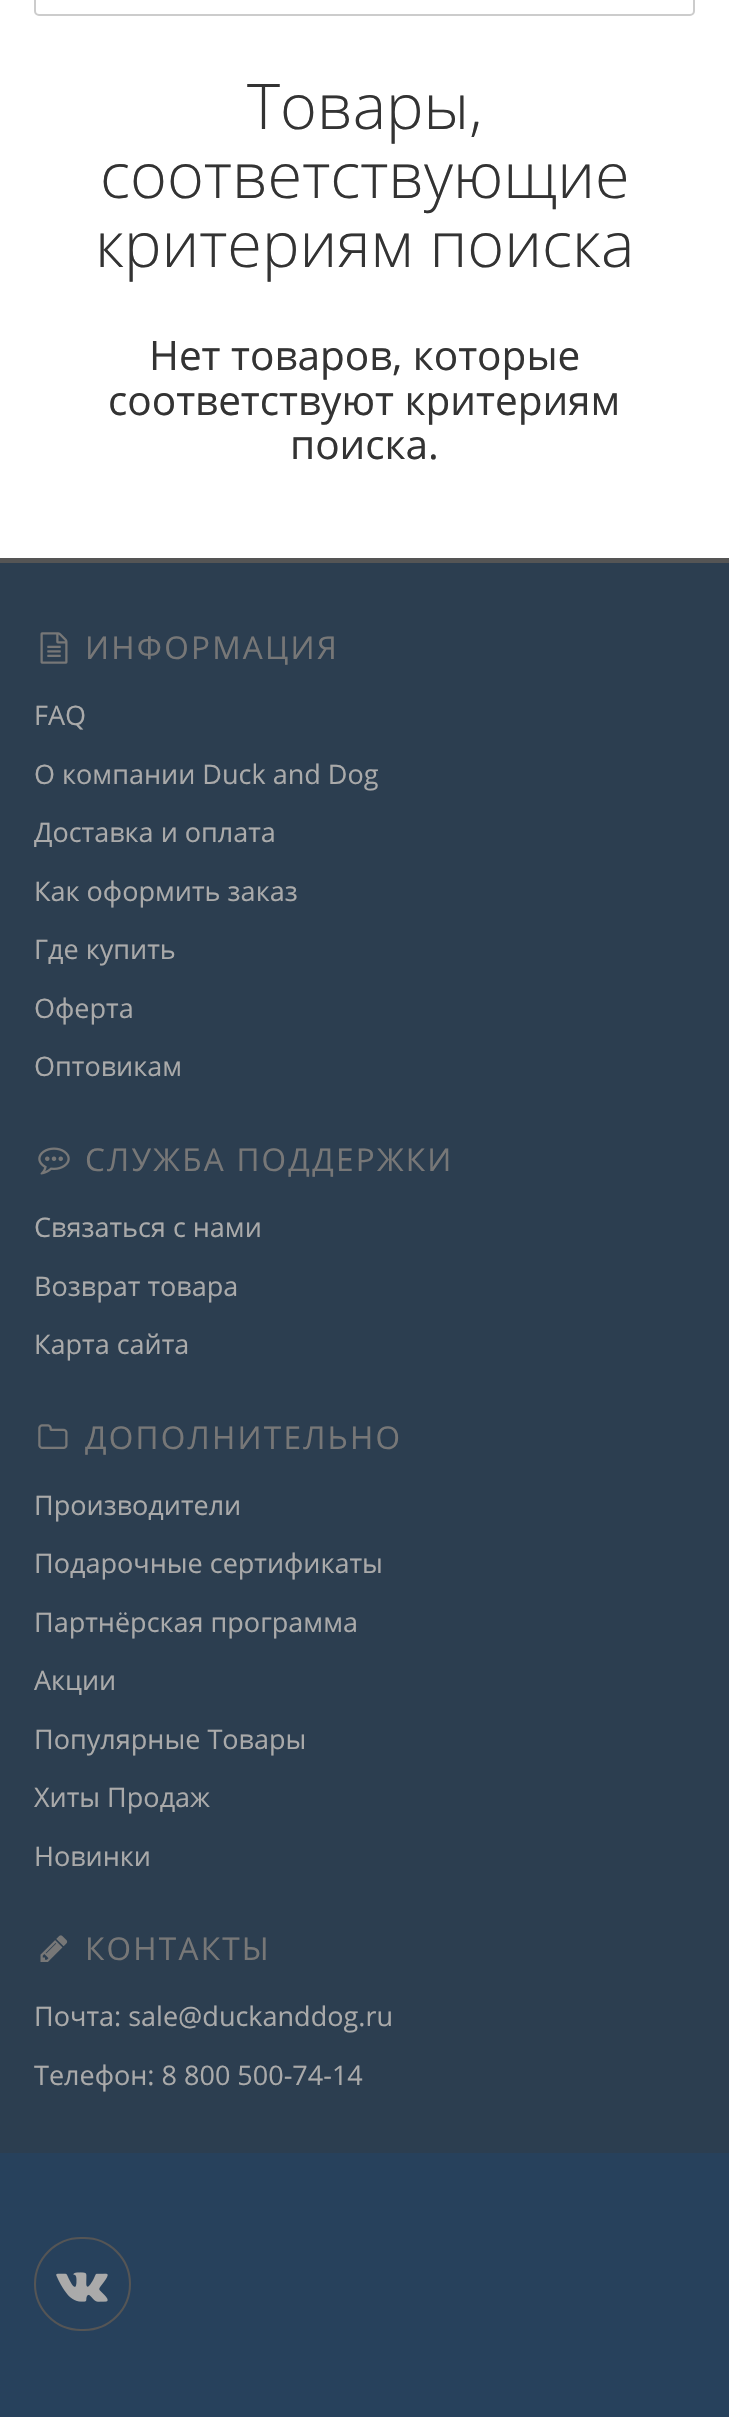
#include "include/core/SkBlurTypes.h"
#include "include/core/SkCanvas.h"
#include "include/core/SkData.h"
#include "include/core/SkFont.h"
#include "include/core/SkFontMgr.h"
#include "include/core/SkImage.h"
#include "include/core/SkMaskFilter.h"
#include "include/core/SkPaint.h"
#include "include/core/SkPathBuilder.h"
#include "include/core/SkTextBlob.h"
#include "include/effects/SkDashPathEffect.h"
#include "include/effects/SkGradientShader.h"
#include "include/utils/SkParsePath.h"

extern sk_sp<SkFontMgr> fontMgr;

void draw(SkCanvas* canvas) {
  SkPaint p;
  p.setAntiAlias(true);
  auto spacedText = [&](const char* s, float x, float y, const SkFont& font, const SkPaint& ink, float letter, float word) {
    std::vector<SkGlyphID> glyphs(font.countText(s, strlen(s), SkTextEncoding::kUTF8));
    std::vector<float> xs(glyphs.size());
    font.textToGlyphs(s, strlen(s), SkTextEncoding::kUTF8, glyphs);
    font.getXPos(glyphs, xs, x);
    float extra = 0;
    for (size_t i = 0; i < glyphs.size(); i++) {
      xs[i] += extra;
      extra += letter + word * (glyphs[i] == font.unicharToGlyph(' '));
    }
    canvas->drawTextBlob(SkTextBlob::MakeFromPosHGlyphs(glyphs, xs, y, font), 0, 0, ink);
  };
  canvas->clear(SK_ColorWHITE);
  p.setStyle(SkPaint::kStroke_Style);
  p.setStrokeWidth(2);
  p.setColor(SkColorSetRGB(204, 204, 204));
  canvas->drawRoundRect(SkRect::MakeLTRB(35, -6, 694, 15), 4, 4, p);
  p.setStyle(SkPaint::kFill_Style);
  p.setColor(SkColorSetRGB(44, 62, 80));
  canvas->drawRect(SkRect::MakeLTRB(0, 563, 729, 2153), p);
  p.setColor(SkColorSetRGB(85, 85, 85));
  canvas->drawRect(SkRect::MakeLTRB(0, 558, 729, 563), p);
  canvas->drawImageRect(SkImages::DeferredFromEncodedData(SkData::MakeFromFileName("images/1.png")), SkRect::MakeLTRB(40, 632, 68, 664), SkSamplingOptions());
  canvas->drawImageRect(SkImages::DeferredFromEncodedData(SkData::MakeFromFileName("images/2.png")), SkRect::MakeLTRB(38, 1147, 70, 1175), SkSamplingOptions());
  canvas->drawImageRect(SkImages::DeferredFromEncodedData(SkData::MakeFromFileName("images/3.png")), SkRect::MakeLTRB(38, 1424, 68, 1449), SkSamplingOptions());
  canvas->drawImageRect(SkImages::DeferredFromEncodedData(SkData::MakeFromFileName("images/4.png")), SkRect::MakeLTRB(40, 1935, 68, 1962), SkSamplingOptions());
  p.setColor(SkColorSetRGB(39, 65, 92));
  canvas->drawRect(SkRect::MakeLTRB(0, 2153, 729, 2417), p);
  p.setStyle(SkPaint::kStroke_Style);
  p.setColor(SkColorSetRGB(85, 85, 85));
  canvas->drawRoundRect(SkRect::MakeLTRB(35, 2238, 130, 2330), 46, 46, p);
  canvas->drawImageRect(SkImages::DeferredFromEncodedData(SkData::MakeFromFileName("images/5.png")), SkRect::MakeLTRB(56, 2272, 108, 2302), SkSamplingOptions());
  SkFont font1(fontMgr->matchFamilyStyle("Open Sans", SkFontStyle(300, SkFontStyle::kNormal_Width, SkFontStyle::kUpright_Slant)), 63);
  font1.setSubpixel(true);
  p.setStyle(SkPaint::kFill_Style);
  p.setColor(SkColorSetRGB(51, 51, 51));
  canvas->drawString("Товары,", 247, 129, font1, p);
  canvas->drawString("соответствующие", 100, 198, font1, p);
  canvas->drawString("критериям поиска", 95, 267, font1, p);
  SkFont font2(fontMgr->matchFamilyStyle("Open Sans", SkFontStyle::Normal()), 40.5f);
  font2.setSubpixel(true);
  canvas->drawString("Нет товаров, которые", 149, 370, font2, p);
  canvas->drawString("соответствуют критериям", 108, 415, font2, p);
  canvas->drawString("поиска.", 290, 459, font2, p);
  SkFont font3(fontMgr->matchFamilyStyle("Open Sans", SkFontStyle::Normal()), 31.5f);
  font3.setSubpixel(true);
  p.setColor(SkColorSetRGB(119, 119, 119));
  spacedText("ИНФОРМАЦИЯ", 85, 659, font3, p, 2.25f, 0);
  SkFont font4(fontMgr->matchFamilyStyle("Open Sans", SkFontStyle::Normal()), 27);
  font4.setSubpixel(true);
  p.setColor(SkColorSetRGB(170, 170, 170));
  canvas->drawString("FAQ", 34, 725, font4, p);
  canvas->drawString("О компании Duck and Dog", 34, 784, font4, p);
  canvas->drawString("Доставка и оплата", 34, 842, font4, p);
  canvas->drawString("Как оформить заказ", 34, 901, font4, p);
  canvas->drawString("Где купить", 34, 959, font4, p);
  canvas->drawString("Оферта", 34, 1018, font4, p);
  canvas->drawString("Оптовикам", 34, 1076, font4, p);
  p.setColor(SkColorSetRGB(119, 119, 119));
  spacedText("СЛУЖБА ПОДДЕРЖКИ", 85, 1171, font3, p, 2.25f, 0);
  p.setColor(SkColorSetRGB(170, 170, 170));
  canvas->drawString("Связаться с нами", 34, 1237, font4, p);
  canvas->drawString("Возврат товара", 34, 1296, font4, p);
  canvas->drawString("Карта сайта", 34, 1354, font4, p);
  p.setColor(SkColorSetRGB(119, 119, 119));
  spacedText("ДОПОЛНИТЕЛЬНО", 85, 1449, font3, p, 2.25f, 0);
  p.setColor(SkColorSetRGB(170, 170, 170));
  canvas->drawString("Производители", 34, 1515, font4, p);
  canvas->drawString("Подарочные сертификаты", 34, 1573, font4, p);
  canvas->drawString("Партнёрская программа", 34, 1632, font4, p);
  canvas->drawString("Акции", 34, 1690, font4, p);
  canvas->drawString("Популярные Товары", 34, 1749, font4, p);
  canvas->drawString("Хиты Продаж", 34, 1807, font4, p);
  canvas->drawString("Новинки", 34, 1866, font4, p);
  p.setColor(SkColorSetRGB(119, 119, 119));
  spacedText("КОНТАКТЫ", 85, 1960, font3, p, 2.25f, 0);
  p.setColor(SkColorSetRGB(170, 170, 170));
  canvas->drawString("Почта: sale@duckanddog.ru", 34, 2026, font4, p);
  canvas->drawString("Телефон: 8 800 500-74-14", 34, 2085, font4, p);
}
